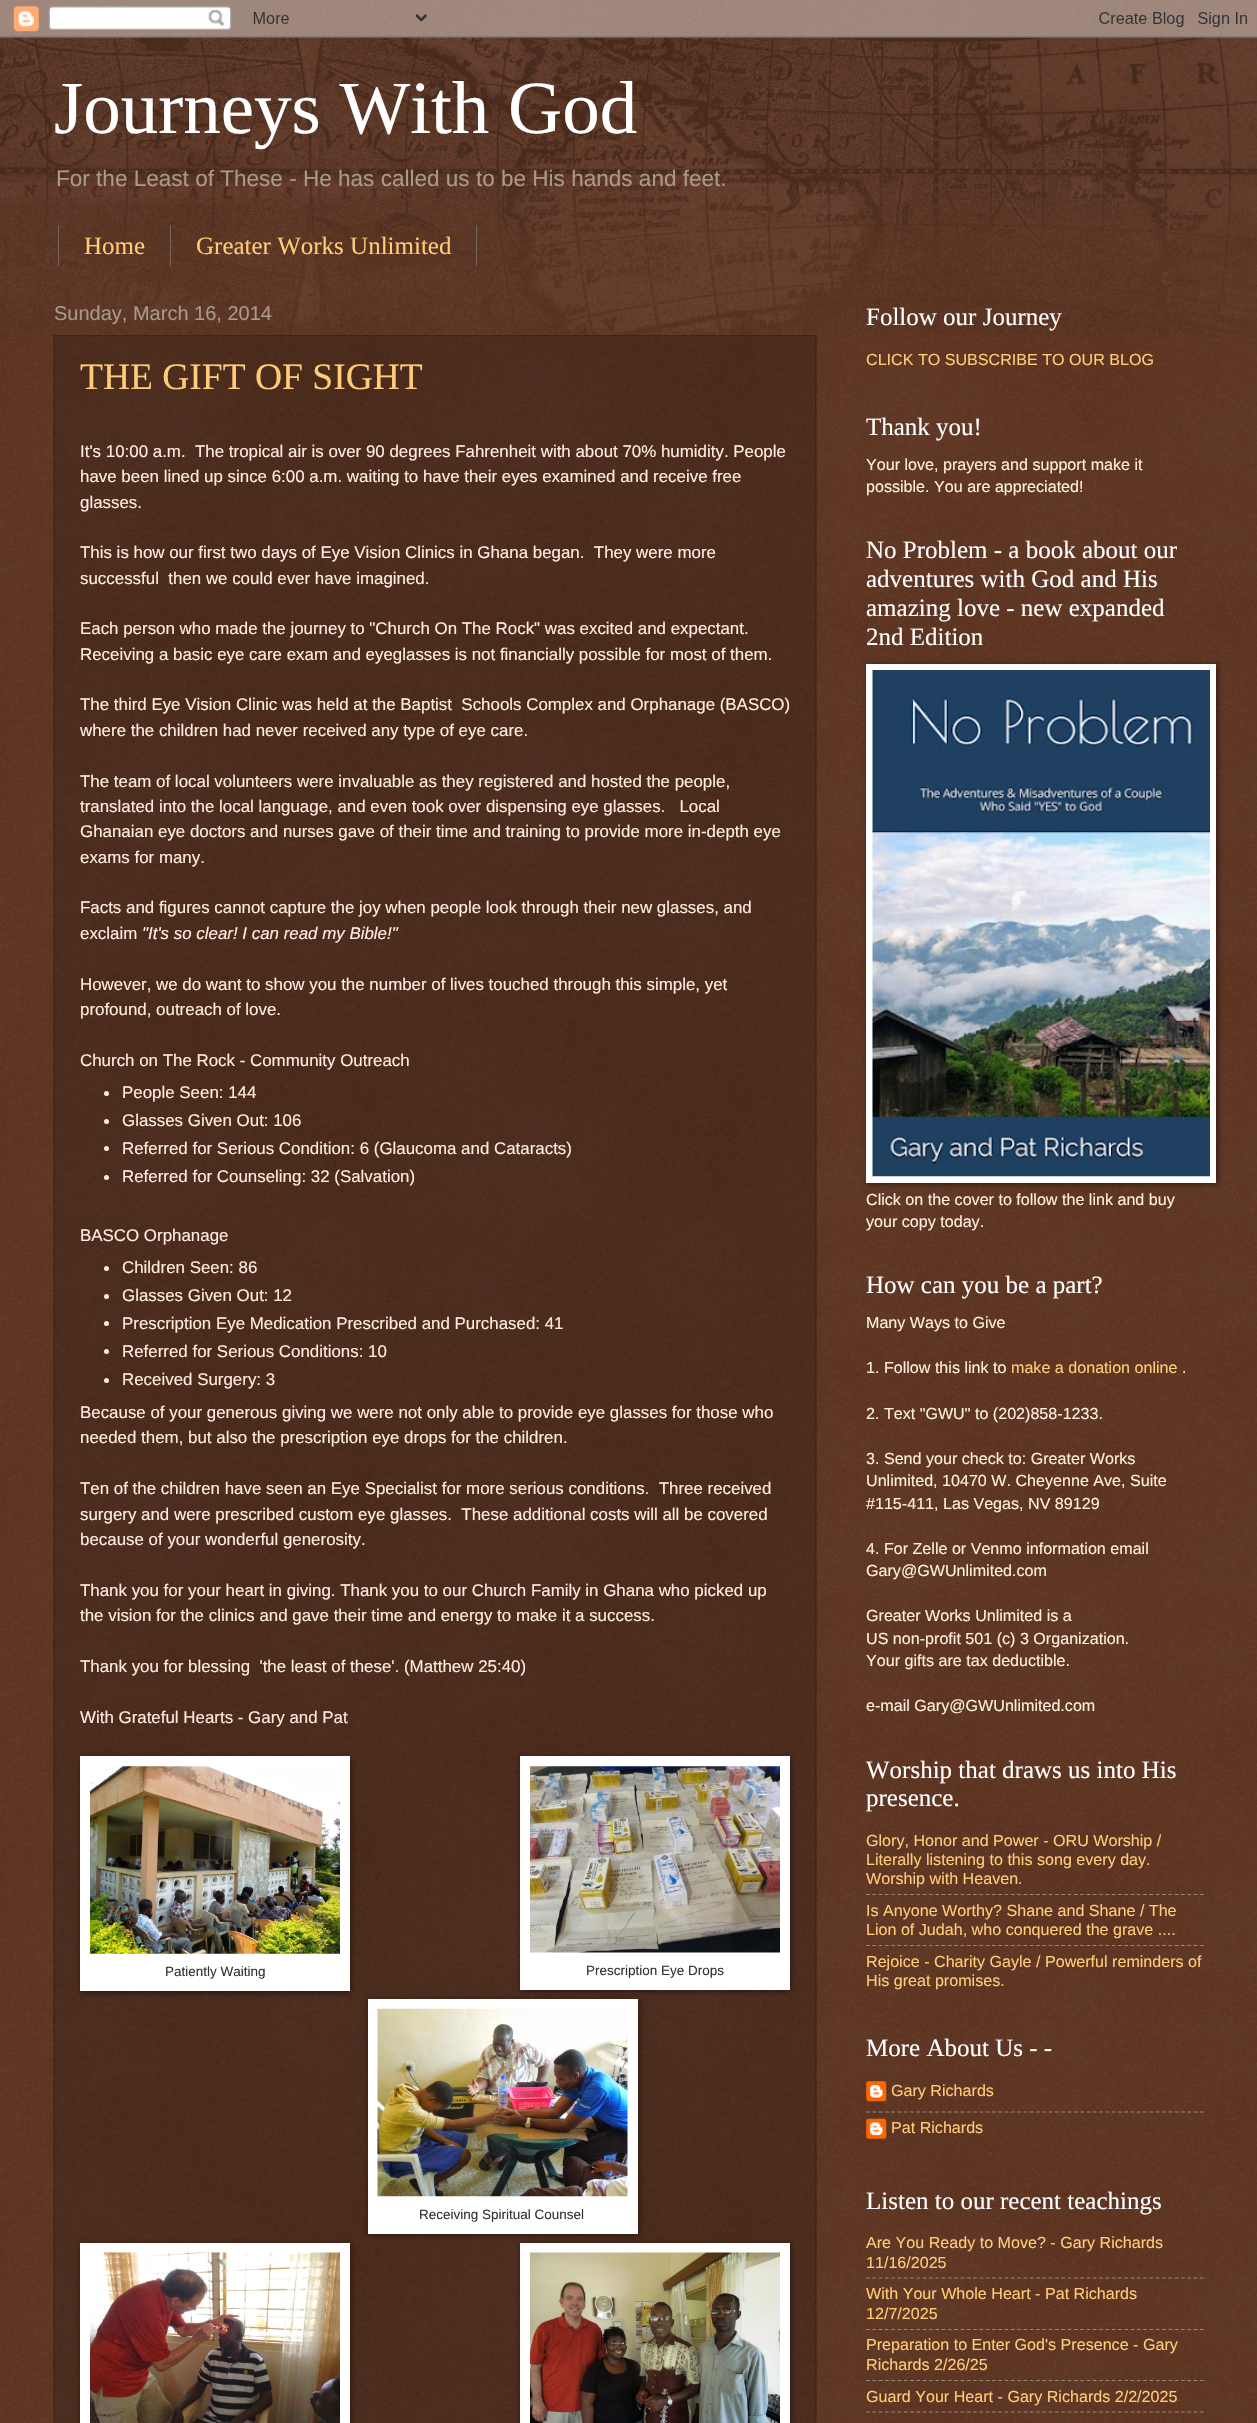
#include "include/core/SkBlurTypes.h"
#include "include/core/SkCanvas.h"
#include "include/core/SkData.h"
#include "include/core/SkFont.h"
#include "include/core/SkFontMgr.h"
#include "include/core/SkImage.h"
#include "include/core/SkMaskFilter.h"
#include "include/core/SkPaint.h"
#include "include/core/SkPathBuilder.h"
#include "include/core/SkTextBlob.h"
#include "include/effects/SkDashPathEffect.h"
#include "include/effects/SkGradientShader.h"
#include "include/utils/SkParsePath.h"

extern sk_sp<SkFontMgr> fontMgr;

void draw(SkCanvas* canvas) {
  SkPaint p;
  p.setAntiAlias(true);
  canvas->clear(SkColorSetRGB(68, 21, 0));
  canvas->drawImageRect(SkImages::DeferredFromEncodedData(SkData::MakeFromFileName("images/1.png")), SkRect::MakeLTRB(0, 0, 1257, 2423), SkSamplingOptions());
  canvas->drawImageRect(SkImages::DeferredFromEncodedData(SkData::MakeFromFileName("images/3.png")), SkRect::MakeLTRB(0, 37, 1257, 337), SkSamplingOptions());
  canvas->drawImageRect(SkImages::DeferredFromEncodedData(SkData::MakeFromFileName("images/2.png")), SkRect::MakeLTRB(0, 0, 1257, 38), SkSamplingOptions());
  p.setColor(SkColorSetRGB(119, 102, 85));
  canvas->drawRect(SkRect::MakeLTRB(170, 225, 171, 266), p);
  canvas->drawRect(SkRect::MakeLTRB(58, 225, 59, 266), p);
  canvas->drawRect(SkRect::MakeLTRB(476, 225, 477, 266), p);
  p.setColor(SkColorSetARGB(51, 0, 0, 0));
  canvas->drawRect(SkRect::MakeLTRB(53, 335, 817, 2423), p);
  p.setStyle(SkPaint::kStroke_Style);
  p.setStrokeWidth(1.2f);
  p.setColor(SkColorSetRGB(51, 34, 17));
  p.setPathEffect(SkDashPathEffect::Make({{1.25f, 1.25f}}, 0));
  canvas->drawPath(SkPathBuilder().moveTo(54, 335.5f).lineTo(816, 335.5f).detach(), p);
  p.setPathEffect(nullptr);
  p.setPathEffect(SkDashPathEffect::Make({{1.25f, 1.25f}}, 0));
  canvas->drawPath(SkPathBuilder().moveTo(815.5f, 335).lineTo(815.5f, 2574).detach(), p);
  p.setPathEffect(nullptr);
  p.setPathEffect(SkDashPathEffect::Make({{1.25f, 1.25f}}, 0));
  canvas->drawPath(SkPathBuilder().moveTo(54.5f, 335).lineTo(54.5f, 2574).detach(), p);
  p.setPathEffect(nullptr);
  p.setStyle(SkPaint::kFill_Style);
  p.setColor(SkColorSetRGB(255, 238, 221));
  canvas->drawCircle(106.5f, 1093.5f, 2.5f, p);
  canvas->drawCircle(106.5f, 1121.5f, 2.5f, p);
  canvas->drawCircle(106.5f, 1148.5f, 2.5f, p);
  canvas->drawCircle(106.5f, 1177.5f, 2.5f, p);
  canvas->drawCircle(106.5f, 1268.5f, 2.5f, p);
  canvas->drawCircle(106.5f, 1296.5f, 2.5f, p);
  canvas->drawCircle(106.5f, 1323.5f, 2.5f, p);
  canvas->drawCircle(106.5f, 1351.5f, 2.5f, p);
  canvas->drawCircle(106.5f, 1380.5f, 2.5f, p);
  p.setColor(SkColorSetARGB(128, 0, 0, 0));
  p.setMaskFilter(SkMaskFilter::MakeBlur(kNormal_SkBlurStyle, 3));
  canvas->drawRect(SkRect::MakeLTRB(81, 1758, 351, 1993), p);
  p.setMaskFilter(nullptr);
  p.setColor(SK_ColorWHITE);
  canvas->drawRect(SkRect::MakeLTRB(80, 1756, 350, 1991), p);
  canvas->drawImageRect(SkImages::DeferredFromEncodedData(SkData::MakeFromFileName("images/4.png")), SkRect::MakeLTRB(90, 1766, 340, 1954), SkSamplingOptions());
  p.setColor(SkColorSetARGB(128, 0, 0, 0));
  p.setMaskFilter(SkMaskFilter::MakeBlur(kNormal_SkBlurStyle, 3));
  canvas->drawRect(SkRect::MakeLTRB(521, 1758, 791, 1991), p);
  p.setMaskFilter(nullptr);
  p.setColor(SK_ColorWHITE);
  canvas->drawRect(SkRect::MakeLTRB(520, 1756, 790, 1990), p);
  canvas->drawImageRect(SkImages::DeferredFromEncodedData(SkData::MakeFromFileName("images/5.png")), SkRect::MakeLTRB(530, 1766, 780, 1953), SkSamplingOptions());
  p.setColor(SkColorSetARGB(128, 0, 0, 0));
  p.setMaskFilter(SkMaskFilter::MakeBlur(kNormal_SkBlurStyle, 3));
  canvas->drawRect(SkRect::MakeLTRB(369, 2000, 639, 2235), p);
  p.setMaskFilter(nullptr);
  p.setColor(SK_ColorWHITE);
  canvas->drawRect(SkRect::MakeLTRB(368, 1999, 638, 2234), p);
  canvas->drawImageRect(SkImages::DeferredFromEncodedData(SkData::MakeFromFileName("images/6.png")), SkRect::MakeLTRB(377, 2008, 628, 2197), SkSamplingOptions());
  p.setColor(SkColorSetARGB(128, 0, 0, 0));
  p.setMaskFilter(SkMaskFilter::MakeBlur(kNormal_SkBlurStyle, 3));
  canvas->drawRect(SkRect::MakeLTRB(81, 2244, 351, 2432), p);
  p.setMaskFilter(nullptr);
  p.setColor(SK_ColorWHITE);
  canvas->drawRect(SkRect::MakeLTRB(80, 2243, 350, 2423), p);
  canvas->drawImageRect(SkImages::DeferredFromEncodedData(SkData::MakeFromFileName("images/7.png")), SkRect::MakeLTRB(90, 2252, 340, 2423), SkSamplingOptions());
  p.setColor(SkColorSetARGB(128, 0, 0, 0));
  p.setMaskFilter(SkMaskFilter::MakeBlur(kNormal_SkBlurStyle, 3));
  canvas->drawRect(SkRect::MakeLTRB(521, 2244, 791, 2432), p);
  p.setMaskFilter(nullptr);
  p.setColor(SK_ColorWHITE);
  canvas->drawRect(SkRect::MakeLTRB(520, 2243, 790, 2423), p);
  canvas->drawImageRect(SkImages::DeferredFromEncodedData(SkData::MakeFromFileName("images/8.png")), SkRect::MakeLTRB(530, 2252, 780, 2423), SkSamplingOptions());
  p.setColor(SkColorSetARGB(128, 0, 0, 0));
  p.setMaskFilter(SkMaskFilter::MakeBlur(kNormal_SkBlurStyle, 3));
  canvas->drawRect(SkRect::MakeLTRB(868, 665, 1218, 1184), p);
  p.setMaskFilter(nullptr);
  p.setColor(SK_ColorWHITE);
  canvas->drawRect(SkRect::MakeLTRB(866, 664, 1216, 1183), p);
  canvas->drawImageRect(SkImages::DeferredFromEncodedData(SkData::MakeFromFileName("images/9.png")), SkRect::MakeLTRB(872, 670, 1210, 1177), SkSamplingOptions());
  p.setStyle(SkPaint::kStroke_Style);
  p.setColor(SkColorSetRGB(153, 136, 119));
  p.setPathEffect(SkDashPathEffect::Make({{3.75f, 2.55f}}, 0));
  canvas->drawPath(SkPathBuilder().moveTo(866, 1894.5f).lineTo(1204, 1894.5f).detach(), p);
  p.setPathEffect(nullptr);
  p.setPathEffect(SkDashPathEffect::Make({{3.75f, 2.55f}}, 0));
  canvas->drawPath(SkPathBuilder().moveTo(866, 1945.5f).lineTo(1204, 1945.5f).detach(), p);
  p.setPathEffect(nullptr);
  canvas->drawImageRect(SkImages::DeferredFromEncodedData(SkData::MakeFromFileName("images/10.png")), SkRect::MakeLTRB(866, 2081, 887, 2102), SkSamplingOptions());
  p.setPathEffect(SkDashPathEffect::Make({{3.75f, 2.55f}}, 0));
  canvas->drawPath(SkPathBuilder().moveTo(866, 2112).lineTo(1204, 2112).detach(), p);
  p.setPathEffect(nullptr);
  canvas->drawImageRect(SkImages::DeferredFromEncodedData(SkData::MakeFromFileName("images/11.png")), SkRect::MakeLTRB(866, 2118, 887, 2139), SkSamplingOptions());
  p.setPathEffect(SkDashPathEffect::Make({{3.75f, 2.55f}}, 0));
  canvas->drawPath(SkPathBuilder().moveTo(866, 2278).lineTo(1204, 2278).detach(), p);
  p.setPathEffect(nullptr);
  p.setPathEffect(SkDashPathEffect::Make({{3.75f, 2.55f}}, 0));
  canvas->drawPath(SkPathBuilder().moveTo(866, 2329.5f).lineTo(1204, 2329.5f).detach(), p);
  p.setPathEffect(nullptr);
  p.setPathEffect(SkDashPathEffect::Make({{3.75f, 2.55f}}, 0));
  canvas->drawPath(SkPathBuilder().moveTo(866, 2380.5f).lineTo(1204, 2380.5f).detach(), p);
  p.setPathEffect(nullptr);
  p.setPathEffect(SkDashPathEffect::Make({{3.75f, 2.55f}}, 0));
  canvas->drawPath(SkPathBuilder().moveTo(866, 2412).lineTo(1204, 2412).detach(), p);
  p.setPathEffect(nullptr);
  SkFont font1(fontMgr->matchFamilyStyle("Liberation Serif", SkFontStyle::Normal()), 75);
  font1.setSubpixel(true);
  p.setStyle(SkPaint::kFill_Style);
  p.setColor(SK_ColorWHITE);
  canvas->drawString("Journeys With God", 54, 133, font1, p);
  SkFont font2(fontMgr->matchFamilyStyle("Liberation Sans", SkFontStyle::Normal()), 22.55f);
  font2.setSubpixel(true);
  p.setColor(SkColorSetRGB(170, 153, 136));
  canvas->drawString("For the Least of These - He has called us to be His hands and feet.", 56, 186, font2, p);
  SkFont font3(fontMgr->matchFamilyStyle("Liberation Serif", SkFontStyle::Normal()), 25);
  font3.setSubpixel(true);
  p.setColor(SkColorSetRGB(255, 204, 119));
  canvas->drawString("Home", 84, 254, font3, p);
  canvas->drawString("Greater Works Unlimited", 196, 254, font3, p);
  SkFont font4(fontMgr->matchFamilyStyle("Liberation Sans", SkFontStyle::Normal()), 20);
  font4.setSubpixel(true);
  p.setColor(SkColorSetRGB(170, 153, 136));
  canvas->drawString("Sunday, March 16, 2014", 54, 320, font4, p);
  SkFont font5(fontMgr->matchFamilyStyle("Liberation Serif", SkFontStyle::Normal()), 37.5f);
  font5.setSubpixel(true);
  p.setColor(SkColorSetRGB(255, 204, 119));
  canvas->drawString("THE GIFT OF SIGHT", 80, 389, font5, p);
  SkFont font6(fontMgr->matchFamilyStyle("Liberation Sans", SkFontStyle::Normal()), 16.9f);
  font6.setSubpixel(true);
  p.setColor(SkColorSetRGB(255, 238, 221));
  canvas->drawString("It's 10:00 a.m.  The tropical air is over 90 degrees Fahrenheit with about 70% humidity. People", 80, 457, font6, p);
  canvas->drawString("have been lined up since 6:00 a.m. waiting to have their eyes examined and receive free", 80, 482, font6, p);
  canvas->drawString("glasses.", 80, 508, font6, p);
  canvas->drawString("This is how our first two days of Eye Vision Clinics in Ghana began.  They were more", 80, 558, font6, p);
  canvas->drawString("successful  then we could ever have imagined.", 80, 584, font6, p);
  canvas->drawString("Each person who made the journey to \"Church On The Rock\" was excited and expectant.", 80, 634, font6, p);
  canvas->drawString("Receiving a basic eye care exam and eyeglasses is not financially possible for most of them.", 80, 660, font6, p);
  canvas->drawString("The third Eye Vision Clinic was held at the Baptist  Schools Complex and Orphanage (BASCO)", 80, 710, font6, p);
  canvas->drawString("where the children had never received any type of eye care.", 80, 736, font6, p);
  canvas->drawString("The team of local volunteers were invaluable as they registered and hosted the people,", 80, 787, font6, p);
  canvas->drawString("translated into the local language, and even took over dispensing eye glasses.   Local", 80, 812, font6, p);
  canvas->drawString("Ghanaian eye doctors and nurses gave of their time and training to provide more in-depth eye", 80, 837, font6, p);
  canvas->drawString("exams for many.", 80, 863, font6, p);
  canvas->drawString("Facts and figures cannot capture the joy when people look through their new glasses, and", 80, 913, font6, p);
  canvas->drawString("exclaim", 80, 939, font6, p);
  SkFont font7(fontMgr->matchFamilyStyle("Liberation Sans", SkFontStyle::Italic()), 16.9f);
  font7.setSubpixel(true);
  canvas->drawString("\"It's so clear! I can read my Bible!\"", 142, 939, font7, p);
  canvas->drawString("However, we do want to show you the number of lives touched through this simple, yet", 80, 990, font6, p);
  canvas->drawString("profound, outreach of love.", 80, 1015, font6, p);
  canvas->drawString("Church on The Rock - Community Outreach", 80, 1066, font6, p);
  canvas->drawString("People Seen: 144", 122, 1098, font6, p);
  canvas->drawString("Glasses Given Out: 106", 122, 1126, font6, p);
  canvas->drawString("Referred for Serious Condition: 6 (Glaucoma and Cataracts)", 122, 1154, font6, p);
  canvas->drawString("Referred for Counseling: 32 (Salvation)", 122, 1182, font6, p);
  canvas->drawString("BASCO Orphanage", 80, 1241, font6, p);
  canvas->drawString("Children Seen: 86", 122, 1273, font6, p);
  canvas->drawString("Glasses Given Out: 12", 122, 1301, font6, p);
  canvas->drawString("Prescription Eye Medication Prescribed and Purchased: 41", 122, 1329, font6, p);
  canvas->drawString("Referred for Serious Conditions: 10", 122, 1357, font6, p);
  canvas->drawString("Received Surgery: 3", 122, 1385, font6, p);
  canvas->drawString("Because of your generous giving we were not only able to provide eye glasses for those who", 80, 1418, font6, p);
  canvas->drawString("needed them, but also the prescription eye drops for the children.", 80, 1443, font6, p);
  canvas->drawString("Ten of the children have seen an Eye Specialist for more serious conditions.  Three received", 80, 1494, font6, p);
  canvas->drawString("surgery and were prescribed custom eye glasses.  These additional costs will all be covered", 80, 1520, font6, p);
  canvas->drawString("because of your wonderful generosity.", 80, 1545, font6, p);
  canvas->drawString("Thank you for your heart in giving. Thank you to our Church Family in Ghana who picked up", 80, 1596, font6, p);
  canvas->drawString("the vision for the clinics and gave their time and energy to make it a success.", 80, 1621, font6, p);
  canvas->drawString("Thank you for blessing  'the least of these'. (Matthew 25:40)", 80, 1672, font6, p);
  canvas->drawString("With Grateful Hearts - Gary and Pat", 80, 1723, font6, p);
  SkFont font8(fontMgr->matchFamilyStyle("Liberation Sans", SkFontStyle::Normal()), 13.5f);
  font8.setSubpixel(true);
  p.setColor(SkColorSetRGB(51, 51, 51));
  canvas->drawString("Patiently Waiting", 165, 1976, font8, p);
  canvas->drawString("Prescription Eye Drops", 586, 1975, font8, p);
  canvas->drawString("Receiving Spiritual Counsel", 419, 2219, font8, p);
  p.setColor(SK_ColorWHITE);
  canvas->drawString("Follow our Journey", 866, 325, font3, p);
  SkFont font9(fontMgr->matchFamilyStyle("Liberation Sans", SkFontStyle::Normal()), 16.1f);
  font9.setSubpixel(true);
  p.setColor(SkColorSetRGB(255, 204, 119));
  canvas->drawString("CLICK TO SUBSCRIBE TO OUR BLOG", 866, 365, font9, p);
  p.setColor(SK_ColorWHITE);
  canvas->drawString("Thank you!", 866, 435, font3, p);
  p.setColor(SkColorSetRGB(255, 238, 221));
  canvas->drawString("Your love, prayers and support make it", 866, 470, font9, p);
  canvas->drawString("possible. You are appreciated!", 866, 492, font9, p);
  p.setColor(SK_ColorWHITE);
  canvas->drawString("No Problem - a book about our", 866, 558, font3, p);
  canvas->drawString("adventures with God and His", 866, 587, font3, p);
  canvas->drawString("amazing love - new expanded", 866, 616, font3, p);
  canvas->drawString("2nd Edition", 866, 645, font3, p);
  p.setColor(SkColorSetRGB(255, 238, 221));
  canvas->drawString("Click on the cover to follow the link and buy", 866, 1205, font9, p);
  canvas->drawString("your copy today.", 866, 1227, font9, p);
  p.setColor(SK_ColorWHITE);
  canvas->drawString("How can you be a part?", 866, 1293, font3, p);
  p.setColor(SkColorSetRGB(255, 238, 221));
  canvas->drawString("Many Ways to Give", 866, 1328, font9, p);
  canvas->drawString("1. Follow this link to", 866, 1373, font9, p);
  p.setColor(SkColorSetRGB(255, 204, 119));
  canvas->drawString("make a donation online", 1011, 1373, font9, p);
  p.setColor(SkColorSetRGB(255, 238, 221));
  canvas->drawString(".", 1182, 1373, font9, p);
  canvas->drawString("2. Text \"GWU\" to (202)858-1233.", 866, 1419, font9, p);
  canvas->drawString("3. Send your check to: Greater Works", 866, 1464, font9, p);
  canvas->drawString("Unlimited, 10470 W. Cheyenne Ave, Suite", 866, 1486, font9, p);
  canvas->drawString("#115-411, Las Vegas, NV 89129", 866, 1509, font9, p);
  canvas->drawString("4. For Zelle or Venmo information email", 866, 1554, font9, p);
  canvas->drawString("Gary@GWUnlimited.com", 866, 1576, font9, p);
  canvas->drawString("Greater Works Unlimited is a", 866, 1621, font9, p);
  canvas->drawString("US non-profit 501 (c) 3 Organization.", 866, 1644, font9, p);
  canvas->drawString("Your gifts are tax deductible.", 866, 1666, font9, p);
  canvas->drawString("e-mail Gary@GWUnlimited.com", 866, 1711, font9, p);
  p.setColor(SK_ColorWHITE);
  canvas->drawString("Worship that draws us into His", 866, 1778, font3, p);
  canvas->drawString("presence.", 866, 1806, font3, p);
  p.setColor(SkColorSetRGB(255, 204, 119));
  canvas->drawString("Glory, Honor and Power - ORU Worship /", 866, 1846, font9, p);
  canvas->drawString("Literally listening to this song every day.", 866, 1865, font9, p);
  canvas->drawString("Worship with Heaven.", 866, 1884, font9, p);
  canvas->drawString("Is Anyone Worthy? Shane and Shane / The", 866, 1916, font9, p);
  canvas->drawString("Lion of Judah, who conquered the grave ....", 866, 1935, font9, p);
  canvas->drawString("Rejoice - Charity Gayle / Powerful reminders of", 866, 1967, font9, p);
  canvas->drawString("His great promises.", 866, 1986, font9, p);
  p.setColor(SK_ColorWHITE);
  canvas->drawString("More About Us - -", 866, 2056, font3, p);
  p.setColor(SkColorSetRGB(255, 204, 119));
  canvas->drawString("Gary Richards", 891, 2096, font9, p);
  canvas->drawString("Pat Richards", 891, 2133, font9, p);
  p.setColor(SK_ColorWHITE);
  canvas->drawString("Listen to our recent teachings", 866, 2209, font3, p);
  p.setColor(SkColorSetRGB(255, 204, 119));
  canvas->drawString("Are You Ready to Move? - Gary Richards", 866, 2248, font9, p);
  canvas->drawString("11/16/2025", 866, 2268, font9, p);
  canvas->drawString("With Your Whole Heart - Pat Richards", 866, 2299, font9, p);
  canvas->drawString("12/7/2025", 866, 2319, font9, p);
  canvas->drawString("Preparation to Enter God's Presence - Gary", 866, 2350, font9, p);
  canvas->drawString("Richards 2/26/25", 866, 2370, font9, p);
  canvas->drawString("Guard Your Heart - Gary Richards 2/2/2025", 866, 2402, font9, p);
}
